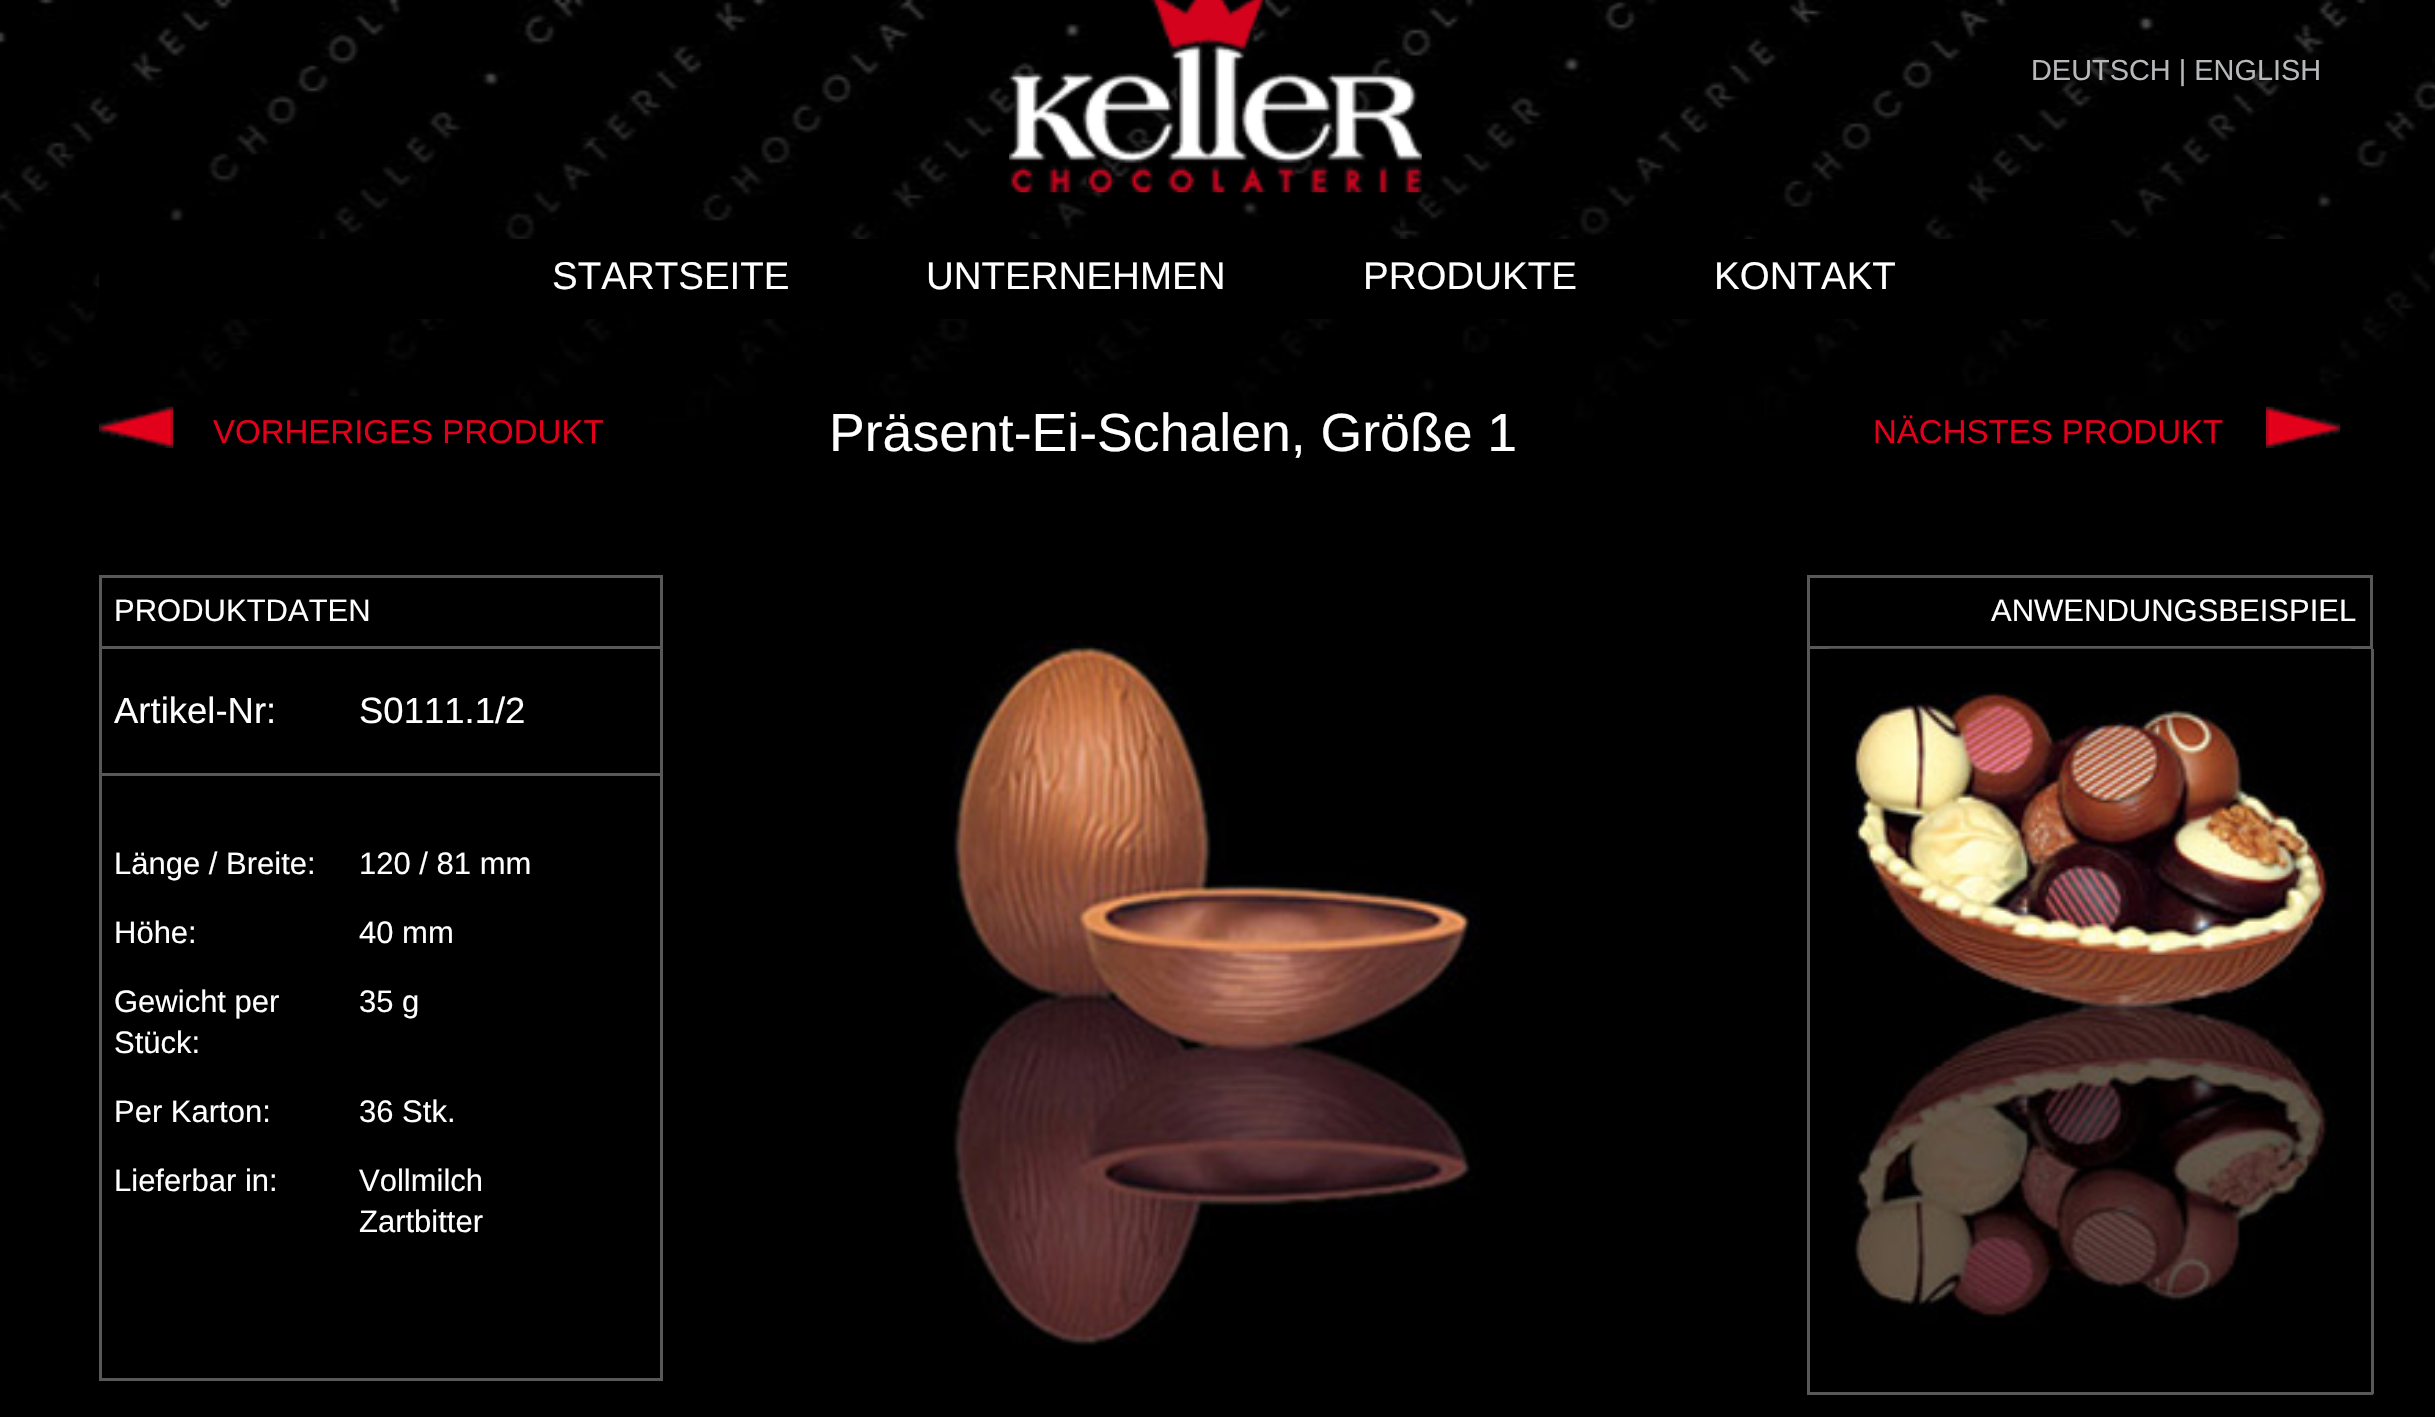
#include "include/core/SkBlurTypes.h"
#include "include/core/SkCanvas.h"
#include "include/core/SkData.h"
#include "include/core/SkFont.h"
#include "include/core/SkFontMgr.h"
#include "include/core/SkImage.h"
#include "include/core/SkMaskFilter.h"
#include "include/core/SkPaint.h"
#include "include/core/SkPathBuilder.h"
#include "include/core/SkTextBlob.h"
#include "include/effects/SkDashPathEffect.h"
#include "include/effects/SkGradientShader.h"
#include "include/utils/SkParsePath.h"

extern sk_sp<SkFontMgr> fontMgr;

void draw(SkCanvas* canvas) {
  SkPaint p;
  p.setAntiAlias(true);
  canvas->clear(SK_ColorBLACK);
  canvas->drawImageRect(SkImages::DeferredFromEncodedData(SkData::MakeFromFileName("images/1.png")), SkRect::MakeLTRB(0, 0, 2435, 422), SkSamplingOptions());
  canvas->drawImageRect(SkImages::DeferredFromEncodedData(SkData::MakeFromFileName("images/2.png")), SkRect::MakeLTRB(1009, 0, 1422, 193), SkSamplingOptions());
  p.setColor(SK_ColorBLACK);
  canvas->drawRect(SkRect::MakeLTRB(99, 239, 2297, 319), p);
  canvas->drawImageRect(SkImages::DeferredFromEncodedData(SkData::MakeFromFileName("images/3.png")), SkRect::MakeLTRB(99, 406, 174, 448), SkSamplingOptions());
  canvas->drawImageRect(SkImages::DeferredFromEncodedData(SkData::MakeFromFileName("images/4.png")), SkRect::MakeLTRB(2266, 406, 2341, 448), SkSamplingOptions());
  p.setStyle(SkPaint::kStroke_Style);
  p.setStrokeWidth(3);
  p.setColor(SkColorSetRGB(88, 88, 90));
  canvas->drawRect(SkRect::MakeLTRB(100.5f, 576.5f, 661.5f, 647.5f), p);
  p.setStyle(SkPaint::kFill_Style);
  canvas->drawRect(SkRect::MakeLTRB(660, 649, 663, 1381), p);
  canvas->drawRect(SkRect::MakeLTRB(99, 773, 663, 776), p);
  canvas->drawRect(SkRect::MakeLTRB(99, 649, 102, 776), p);
  canvas->drawRect(SkRect::MakeLTRB(99, 1378, 663, 1381), p);
  canvas->drawRect(SkRect::MakeLTRB(99, 776, 102, 1381), p);
  p.setStyle(SkPaint::kStroke_Style);
  canvas->drawRect(SkRect::MakeLTRB(1808.5f, 576.5f, 2371.5f, 647.5f), p);
  p.setStyle(SkPaint::kFill_Style);
  canvas->drawRect(SkRect::MakeLTRB(2371, 649, 2374, 1394), p);
  canvas->drawRect(SkRect::MakeLTRB(1807, 1392, 2373, 1395), p);
  canvas->drawRect(SkRect::MakeLTRB(1807, 649, 1810, 1394), p);
  canvas->drawImageRect(SkImages::DeferredFromEncodedData(SkData::MakeFromFileName("images/5.png")), SkRect::MakeLTRB(1828, 648, 2352, 1325), SkSamplingOptions());
  canvas->drawImageRect(SkImages::DeferredFromEncodedData(SkData::MakeFromFileName("images/6.png")), SkRect::MakeLTRB(951, 640, 1480, 1346), SkSamplingOptions());
  SkFont font1(fontMgr->matchFamilyStyle("Liberation Sans", SkFontStyle::Normal()), 28.9f);
  font1.setSubpixel(true);
  p.setColor(SkColorSetRGB(182, 184, 186));
  canvas->drawString("DEUTSCH | ENGLISH", 2031, 80, font1, p);
  SkFont font2(fontMgr->matchFamilyStyle("Liberation Sans", SkFontStyle::Normal()), 38.5f);
  font2.setSubpixel(true);
  p.setColor(SK_ColorWHITE);
  canvas->drawString("STARTSEITE", 552, 289, font2, p);
  canvas->drawString("UNTERNEHMEN", 926, 289, font2, p);
  canvas->drawString("PRODUKTE", 1363, 289, font2, p);
  canvas->drawString("KONTAKT", 1714, 289, font2, p);
  SkFont font3(fontMgr->matchFamilyStyle("Liberation Sans", SkFontStyle::Normal()), 33);
  font3.setSubpixel(true);
  p.setColor(SkColorSetRGB(226, 0, 26));
  canvas->drawString("VORHERIGES PRODUKT", 213, 443, font3, p);
  SkFont font4(fontMgr->matchFamilyStyle("Liberation Sans", SkFontStyle::Normal()), 53.6f);
  font4.setSubpixel(true);
  p.setColor(SK_ColorWHITE);
  canvas->drawString("Präsent-Ei-Schalen, Größe 1", 829, 451, font4, p);
  p.setColor(SkColorSetRGB(226, 0, 26));
  canvas->drawString("NÄCHSTES PRODUKT", 1873, 443, font3, p);
  SkFont font5(fontMgr->matchFamilyStyle("Liberation Sans", SkFontStyle::Normal()), 31);
  font5.setSubpixel(true);
  p.setColor(SK_ColorWHITE);
  canvas->drawString("PRODUKTDATEN", 114, 621, font5, p);
  SkFont font6(fontMgr->matchFamilyStyle("Liberation Sans", SkFontStyle::Normal()), 36.5f);
  font6.setSubpixel(true);
  canvas->drawString("Artikel-Nr:", 114, 723, font6, p);
  canvas->drawString("S0111.1/2", 359, 723, font6, p);
  canvas->drawString("Länge / Breite:", 114, 874, font5, p);
  canvas->drawString("120 / 81 mm", 359, 874, font5, p);
  canvas->drawString("Höhe:", 114, 943, font5, p);
  canvas->drawString("40 mm", 359, 943, font5, p);
  canvas->drawString("Gewicht per", 114, 1012, font5, p);
  canvas->drawString("Stück:", 114, 1053, font5, p);
  canvas->drawString("35 g", 359, 1012, font5, p);
  canvas->drawString("Per Karton:", 114, 1122, font5, p);
  canvas->drawString("36 Stk.", 359, 1122, font5, p);
  canvas->drawString("Lieferbar in:", 114, 1191, font5, p);
  canvas->drawString("Vollmilch", 359, 1191, font5, p);
  canvas->drawString("Zartbitter", 359, 1232, font5, p);
  canvas->drawString("ANWENDUNGSBEISPIEL", 1991, 621, font5, p);
}
